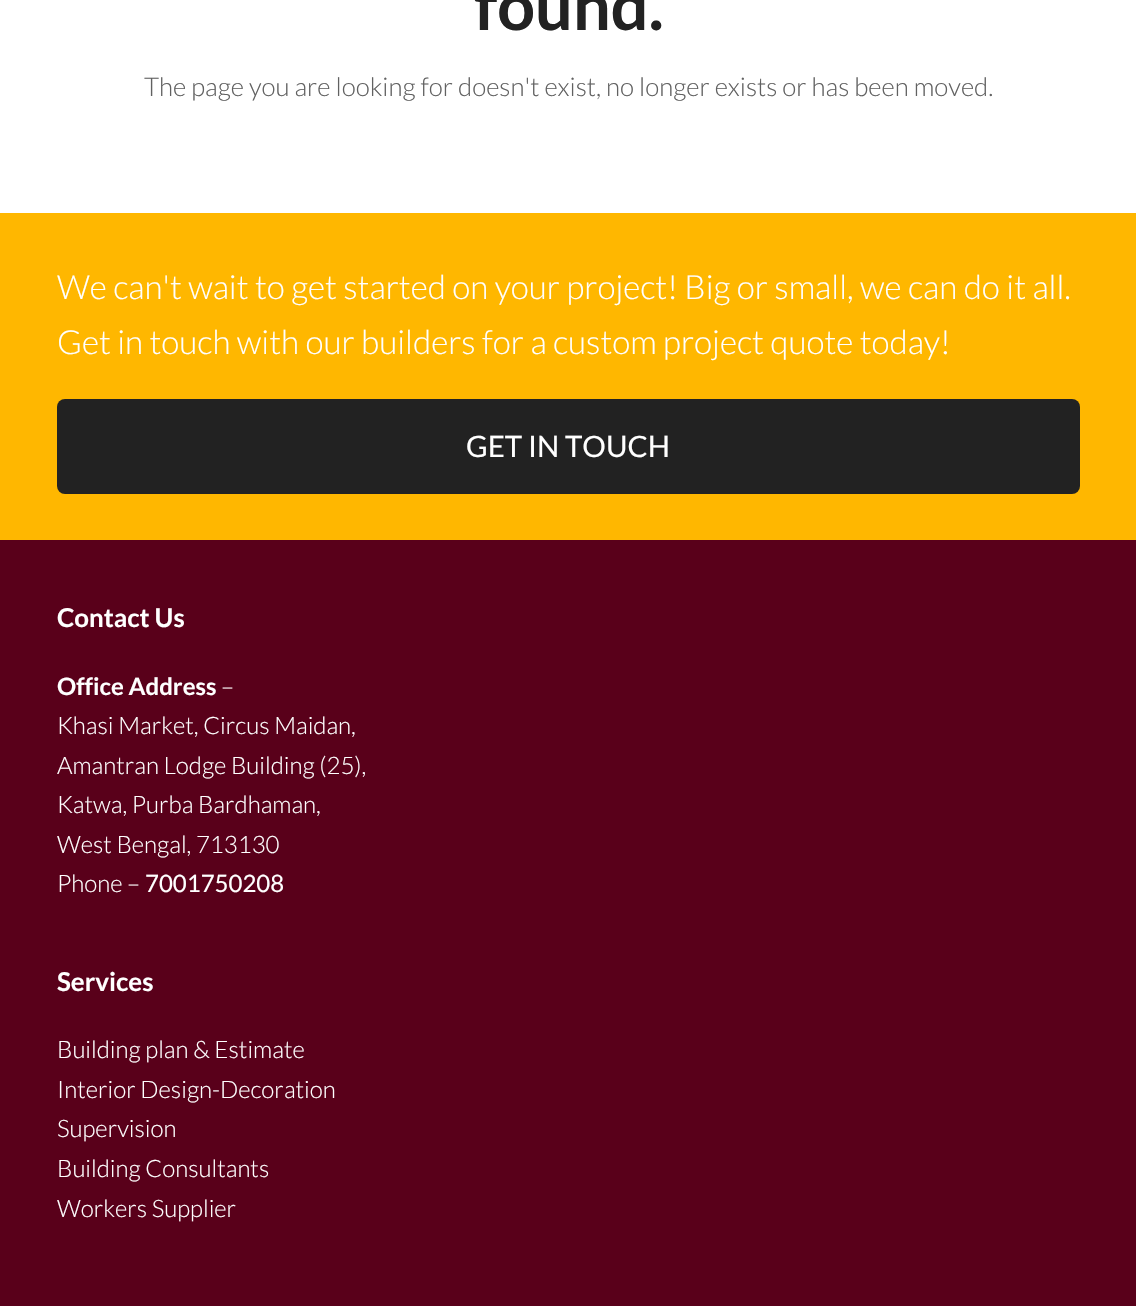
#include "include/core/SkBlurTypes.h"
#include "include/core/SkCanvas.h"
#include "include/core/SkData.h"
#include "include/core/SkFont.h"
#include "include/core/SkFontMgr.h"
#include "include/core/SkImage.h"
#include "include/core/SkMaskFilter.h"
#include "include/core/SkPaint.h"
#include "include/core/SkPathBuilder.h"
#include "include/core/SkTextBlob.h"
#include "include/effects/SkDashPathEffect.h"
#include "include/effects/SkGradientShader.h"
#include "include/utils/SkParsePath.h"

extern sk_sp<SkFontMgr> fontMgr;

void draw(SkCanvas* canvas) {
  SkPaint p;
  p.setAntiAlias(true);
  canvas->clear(SK_ColorWHITE);
  p.setColor(SkColorSetRGB(255, 183, 0));
  canvas->drawRect(SkRect::MakeLTRB(0, 213, 1136, 540), p);
  p.setColor(SkColorSetRGB(34, 34, 34));
  canvas->drawRoundRect(SkRect::MakeLTRB(57, 399, 1080, 494), 8, 8, p);
  p.setColor(SkColorSetRGB(89, 0, 26));
  canvas->drawRect(SkRect::MakeLTRB(0, 540, 1136, 1306), p);
  SkFont font1(fontMgr->matchFamilyStyle("Lato", SkFontStyle::Bold()), 66.5f);
  font1.setSubpixel(true);
  p.setColor(SkColorSetRGB(34, 34, 34));
  canvas->drawString("found.", 474, 30, font1, p);
  SkFont font2(fontMgr->matchFamilyStyle("Lato", SkFontStyle(300, SkFontStyle::kNormal_Width, SkFontStyle::kUpright_Slant)), 25.85f);
  font2.setSubpixel(true);
  p.setColor(SkColorSetRGB(97, 97, 97));
  canvas->drawString("The page you are looking for doesn't exist, no longer exists or has been moved.", 144, 96, font2, p);
  SkFont font3(fontMgr->matchFamilyStyle("Lato", SkFontStyle(300, SkFontStyle::kNormal_Width, SkFontStyle::kUpright_Slant)), 33.25f);
  font3.setSubpixel(true);
  p.setColor(SK_ColorWHITE);
  canvas->drawString("We can't wait to get started on your project! Big or small, we can do it all.", 57, 299, font3, p);
  canvas->drawString("Get in touch with our builders for a custom project quote today!", 57, 354, font3, p);
  SkFont font4(fontMgr->matchFamilyStyle("Lato", SkFontStyle::Normal()), 29.5f);
  font4.setSubpixel(true);
  canvas->drawString("GET IN TOUCH", 466, 457, font4, p);
  SkFont font5(fontMgr->matchFamilyStyle("Lato", SkFontStyle::Bold()), 25.85f);
  font5.setSubpixel(true);
  canvas->drawString("Contact Us", 57, 627, font5, p);
  SkFont font6(fontMgr->matchFamilyStyle("Lato", SkFontStyle::Bold()), 24);
  font6.setSubpixel(true);
  canvas->drawString("Office Address", 57, 695, font6, p);
  SkFont font7(fontMgr->matchFamilyStyle("Lato", SkFontStyle(300, SkFontStyle::kNormal_Width, SkFontStyle::kUpright_Slant)), 24);
  font7.setSubpixel(true);
  canvas->drawString("–", 221, 695, font7, p);
  canvas->drawString("Khasi Market, Circus Maidan,", 57, 734, font7, p);
  canvas->drawString("Amantran Lodge Building (25),", 57, 774, font7, p);
  canvas->drawString("Katwa, Purba Bardhaman,", 57, 813, font7, p);
  canvas->drawString("West Bengal, 713130", 57, 853, font7, p);
  canvas->drawString("Phone –", 57, 892, font7, p);
  SkFont font8(fontMgr->matchFamilyStyle("Lato", SkFontStyle::Normal()), 24);
  font8.setSubpixel(true);
  canvas->drawString("7001750208", 145, 892, font8, p);
  canvas->drawString("Services", 57, 991, font5, p);
  canvas->drawString("Building plan & Estimate", 57, 1058, font7, p);
  canvas->drawString("Interior Design-Decoration", 57, 1098, font7, p);
  canvas->drawString("Supervision", 57, 1137, font7, p);
  canvas->drawString("Building Consultants", 57, 1177, font7, p);
  canvas->drawString("Workers Supplier", 57, 1217, font7, p);
}
